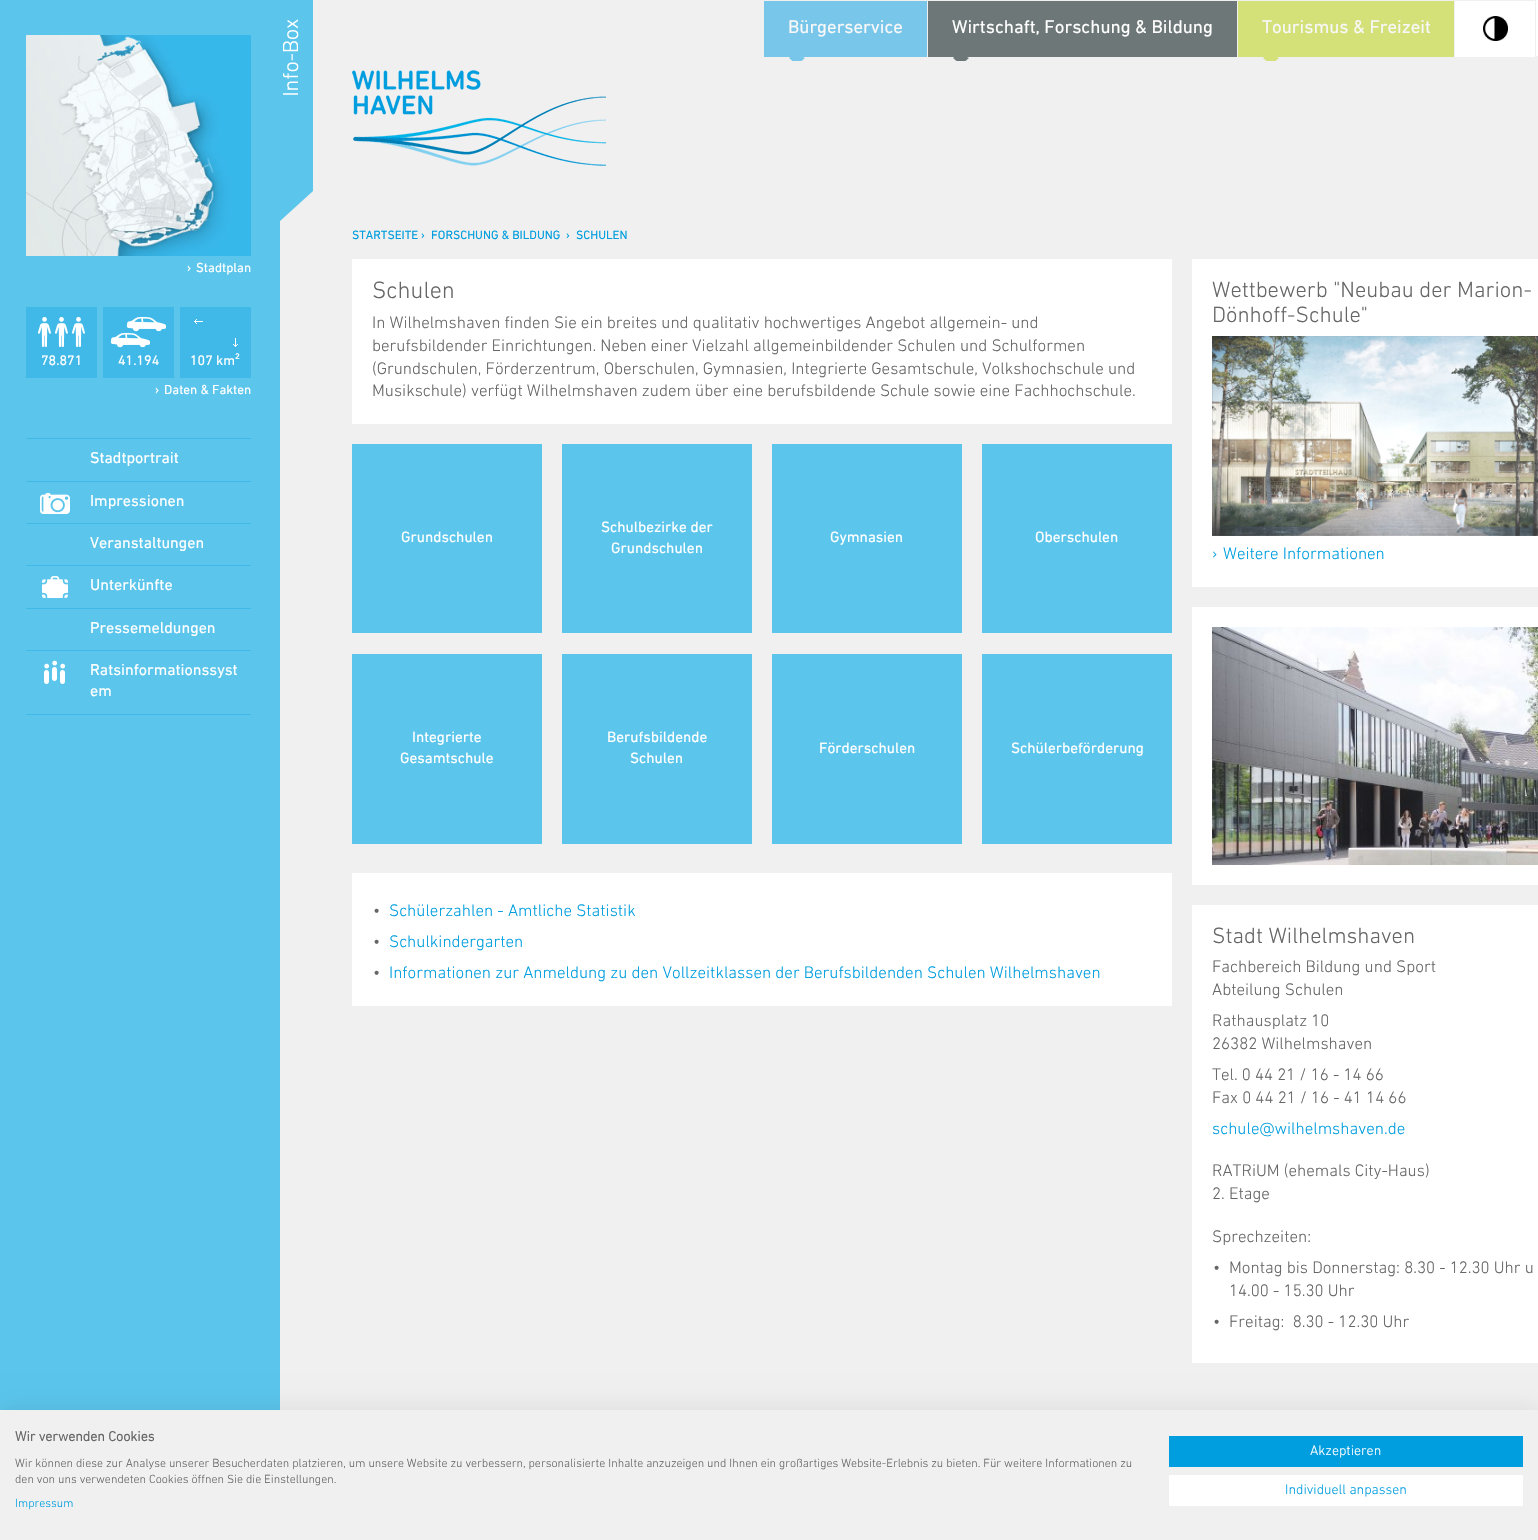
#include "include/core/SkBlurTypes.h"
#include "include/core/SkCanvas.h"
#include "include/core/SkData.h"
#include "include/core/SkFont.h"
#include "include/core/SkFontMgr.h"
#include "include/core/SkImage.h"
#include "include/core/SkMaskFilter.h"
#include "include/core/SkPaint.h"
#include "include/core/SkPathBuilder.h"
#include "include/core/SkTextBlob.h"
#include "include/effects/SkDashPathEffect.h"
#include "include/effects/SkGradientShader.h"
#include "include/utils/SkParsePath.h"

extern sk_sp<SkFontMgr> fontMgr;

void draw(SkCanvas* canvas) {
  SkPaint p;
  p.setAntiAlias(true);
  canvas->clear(SkColorSetRGB(240, 240, 240));
  p.setColor(SkColorSetRGB(91, 197, 236));
  canvas->drawRect(SkRect::MakeLTRB(0, 0, 280, 1410), p);
  canvas->drawImageRect(SkImages::DeferredFromEncodedData(SkData::MakeFromFileName("images/1.png")), SkRect::MakeLTRB(26, 35, 251, 256), SkSamplingOptions());
  canvas->drawImageRect(SkImages::DeferredFromEncodedData(SkData::MakeFromFileName("images/2.png")), SkRect::MakeLTRB(280, 0, 313, 221), SkSamplingOptions());
  p.setColor(SkColorSetRGB(64, 185, 233));
  canvas->drawRect(SkRect::MakeLTRB(26, 307, 97, 378), p);
  canvas->drawImageRect(SkImages::DeferredFromEncodedData(SkData::MakeFromFileName("images/3.png")), SkRect::MakeLTRB(38, 317, 85, 347), SkSamplingOptions());
  canvas->drawRect(SkRect::MakeLTRB(103, 307, 174, 378), p);
  canvas->drawImageRect(SkImages::DeferredFromEncodedData(SkData::MakeFromFileName("images/4.png")), SkRect::MakeLTRB(110, 317, 166, 348), SkSamplingOptions());
  canvas->drawRect(SkRect::MakeLTRB(180, 307, 251, 378), p);
  canvas->drawImageRect(SkImages::DeferredFromEncodedData(SkData::MakeFromFileName("images/5.png")), SkRect::MakeLTRB(194, 319, 203, 324), SkSamplingOptions());
  canvas->drawImageRect(SkImages::DeferredFromEncodedData(SkData::MakeFromFileName("images/6.png")), SkRect::MakeLTRB(233, 338, 238, 347), SkSamplingOptions());
  canvas->drawRect(SkRect::MakeLTRB(26, 438, 251, 439), p);
  canvas->drawRect(SkRect::MakeLTRB(26, 481, 251, 482), p);
  canvas->drawRect(SkRect::MakeLTRB(26, 523, 251, 524), p);
  canvas->drawImageRect(SkImages::DeferredFromEncodedData(SkData::MakeFromFileName("images/7.png")), SkRect::MakeLTRB(40, 493, 70, 514), SkSamplingOptions());
  canvas->drawRect(SkRect::MakeLTRB(26, 565, 251, 566), p);
  canvas->drawRect(SkRect::MakeLTRB(26, 608, 251, 609), p);
  canvas->drawImageRect(SkImages::DeferredFromEncodedData(SkData::MakeFromFileName("images/8.png")), SkRect::MakeLTRB(42, 576, 68, 598), SkSamplingOptions());
  canvas->drawRect(SkRect::MakeLTRB(26, 650, 251, 651), p);
  canvas->drawRect(SkRect::MakeLTRB(26, 714, 251, 715), p);
  canvas->drawImageRect(SkImages::DeferredFromEncodedData(SkData::MakeFromFileName("images/9.png")), SkRect::MakeLTRB(44, 660, 65, 684), SkSamplingOptions());
  p.setColor(SkColorSetRGB(120, 198, 233));
  canvas->drawRect(SkRect::MakeLTRB(764, 1, 927, 57), p);
  canvas->drawPath(SkPathBuilder().moveTo(791, 57).cubicTo(790, 57, 789.5f, 57.5f, 789, 58).lineTo(792.5f, 61).lineTo(801.5f, 61).lineTo(805, 58).lineTo(803, 57).close().detach(), p);
  p.setColor(SkColorSetRGB(109, 119, 119));
  canvas->drawRect(SkRect::MakeLTRB(928, 1, 1237, 57), p);
  canvas->drawPath(SkPathBuilder().moveTo(955, 57).cubicTo(954, 57, 953.5f, 57.5f, 953, 58).lineTo(956.5f, 61).lineTo(965.5f, 61).lineTo(969, 58).lineTo(967, 57).close().detach(), p);
  p.setColor(SkColorSetRGB(212, 224, 120));
  canvas->drawRect(SkRect::MakeLTRB(1238, 1, 1454, 57), p);
  canvas->drawPath(SkPathBuilder().moveTo(1265, 57).cubicTo(1264, 57, 1263.5f, 57.5f, 1263, 58).lineTo(1266.5f, 61).lineTo(1275.5f, 61).lineTo(1279, 58).lineTo(1277, 57).close().detach(), p);
  p.setColor(SK_ColorWHITE);
  canvas->drawRect(SkRect::MakeLTRB(1455, 1, 1535, 57), p);
  canvas->drawImageRect(SkImages::DeferredFromEncodedData(SkData::MakeFromFileName("images/10.png")), SkRect::MakeLTRB(1483, 16, 1508, 41), SkSamplingOptions());
  canvas->drawRect(SkRect::MakeLTRB(1536, 0, 1538, 56), p);
  canvas->drawImageRect(SkImages::DeferredFromEncodedData(SkData::MakeFromFileName("images/11.png")), SkRect::MakeLTRB(352, 70, 606, 166), SkSamplingOptions());
  canvas->drawRect(SkRect::MakeLTRB(352, 259, 1172, 424), p);
  p.setColor(SkColorSetRGB(91, 197, 236));
  canvas->drawRect(SkRect::MakeLTRB(352, 444, 542, 633), p);
  canvas->drawRect(SkRect::MakeLTRB(562, 444, 752, 633), p);
  canvas->drawRect(SkRect::MakeLTRB(772, 444, 962, 633), p);
  canvas->drawRect(SkRect::MakeLTRB(982, 444, 1172, 633), p);
  canvas->drawRect(SkRect::MakeLTRB(352, 654, 542, 844), p);
  canvas->drawRect(SkRect::MakeLTRB(562, 654, 752, 844), p);
  canvas->drawRect(SkRect::MakeLTRB(772, 654, 962, 844), p);
  canvas->drawRect(SkRect::MakeLTRB(982, 654, 1172, 844), p);
  p.setColor(SK_ColorWHITE);
  canvas->drawRect(SkRect::MakeLTRB(352, 873, 1172, 1006), p);
  canvas->drawRect(SkRect::MakeLTRB(1192, 259, 1538, 587), p);
  canvas->drawImageRect(SkImages::DeferredFromEncodedData(SkData::MakeFromFileName("images/12.png")), SkRect::MakeLTRB(1212, 336, 1538, 536), SkSamplingOptions());
  canvas->drawRect(SkRect::MakeLTRB(1192, 607, 1538, 885), p);
  canvas->drawImageRect(SkImages::DeferredFromEncodedData(SkData::MakeFromFileName("images/13.png")), SkRect::MakeLTRB(1212, 627, 1538, 865), SkSamplingOptions());
  canvas->drawRect(SkRect::MakeLTRB(1192, 905, 1538, 1363), p);
  p.setColor(SkColorSetARGB(26, 0, 0, 0));
  p.setMaskFilter(SkMaskFilter::MakeBlur(kNormal_SkBlurStyle, 12));
  canvas->drawRect(SkRect::MakeLTRB(0, 1410, 1538, 1540), p);
  p.setMaskFilter(nullptr);
  p.setColor(SkColorSetRGB(240, 240, 240));
  canvas->drawRect(SkRect::MakeLTRB(0, 1410, 1538, 1540), p);
  p.setColor(SkColorSetRGB(0, 158, 223));
  canvas->drawRect(SkRect::MakeLTRB(1169, 1436, 1523, 1467), p);
  p.setColor(SK_ColorWHITE);
  canvas->drawRect(SkRect::MakeLTRB(1169, 1475, 1523, 1506), p);
  SkFont font1(fontMgr->matchFamilyStyle("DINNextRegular", SkFontStyle::Normal()), 13.25f);
  font1.setSubpixel(true);
  canvas->drawString("›", 187, 272, font1, p);
  canvas->drawString("Stadtplan", 196, 272, font1, p);
  SkFont font2(fontMgr->matchFamilyStyle("DINNextRegular", SkFontStyle::Normal()), 14);
  font2.setSubpixel(true);
  canvas->drawString("78.871", 41, 365, font2, p);
  canvas->drawString("41.194", 118, 365, font2, p);
  canvas->drawString("107 km²", 190, 365, font2, p);
  canvas->drawString("›", 155, 394, font1, p);
  canvas->drawString("Daten & Fakten", 164, 394, font1, p);
  SkFont font3(fontMgr->matchFamilyStyle("DINNextRegular", SkFontStyle::Normal()), 16);
  font3.setSubpixel(true);
  canvas->drawString("Stadtportrait", 90, 463, font3, p);
  canvas->drawString("Impressionen", 90, 506, font3, p);
  canvas->drawString("Veranstaltungen", 90, 548, font3, p);
  canvas->drawString("Unterkünfte", 90, 590, font3, p);
  canvas->drawString("Pressemeldungen", 90, 633, font3, p);
  canvas->drawString("Ratsinformationssyst", 90, 675, font3, p);
  canvas->drawString("em", 90, 696, font3, p);
  SkFont font4(fontMgr->matchFamilyStyle("DINNextRegular", SkFontStyle::Normal()), 18.75f);
  font4.setSubpixel(true);
  p.setColor(SkColorSetRGB(248, 248, 248));
  canvas->drawString("Bürgerservice", 788, 33, font4, p);
  p.setColor(SK_ColorWHITE);
  canvas->drawString("Wirtschaft, Forschung & Bildung", 952, 33, font4, p);
  p.setColor(SkColorSetRGB(248, 248, 248));
  canvas->drawString("Tourismus & Freizeit", 1262, 33, font4, p);
  SkFont font5(fontMgr->matchFamilyStyle("DINNextRegular", SkFontStyle::Normal()), 12.25f);
  font5.setSubpixel(true);
  p.setColor(SkColorSetRGB(0, 158, 223));
  canvas->drawString("STARTSEITE ›", 352, 239, font5, p);
  canvas->drawString("FORSCHUNG & BILDUNG", 431, 239, font5, p);
  canvas->drawString("›", 566, 239, font5, p);
  canvas->drawString("SCHULEN", 576, 239, font5, p);
  SkFont font6(fontMgr->matchFamilyStyle("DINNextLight", SkFontStyle(300, SkFontStyle::kNormal_Width, SkFontStyle::kUpright_Slant)), 24);
  font6.setSubpixel(true);
  p.setColor(SkColorSetRGB(102, 102, 102));
  canvas->drawString("Schulen", 372, 298, font6, p);
  SkFont font7(fontMgr->matchFamilyStyle("DINNextLight", SkFontStyle(300, SkFontStyle::kNormal_Width, SkFontStyle::kUpright_Slant)), 17);
  font7.setSubpixel(true);
  canvas->drawString("In Wilhelmshaven finden Sie ein breites und qualitativ hochwertiges Angebot allgemein- und", 372, 328, font7, p);
  canvas->drawString("berufsbildender Einrichtungen. Neben einer Vielzahl allgemeinbildender Schulen und Schulformen", 372, 351, font7, p);
  canvas->drawString("(Grundschulen, Förderzentrum, Oberschulen, Gymnasien, Integrierte Gesamtschule, Volkshochschule und", 372, 374, font7, p);
  canvas->drawString("Musikschule) verfügt Wilhelmshaven zudem über eine berufsbildende Schule sowie eine Fachhochschule.", 372, 396, font7, p);
  SkFont font8(fontMgr->matchFamilyStyle("DINNextRegular", SkFontStyle::Normal()), 15.25f);
  font8.setSubpixel(true);
  p.setColor(SK_ColorWHITE);
  canvas->drawString("Grundschulen", 401, 542, font8, p);
  canvas->drawString("Schulbezirke der", 601, 532, font8, p);
  canvas->drawString("Grundschulen", 611, 553, font8, p);
  canvas->drawString("Gymnasien", 830, 542, font8, p);
  canvas->drawString("Oberschulen", 1035, 542, font8, p);
  canvas->drawString("Integrierte", 412, 742, font8, p);
  canvas->drawString("Gesamtschule", 400, 763, font8, p);
  canvas->drawString("Berufsbildende", 607, 742, font8, p);
  canvas->drawString("Schulen", 630, 763, font8, p);
  canvas->drawString("Förderschulen", 819, 753, font8, p);
  canvas->drawString("Schülerbeförderung", 1011, 753, font8, p);
  p.setColor(SkColorSetRGB(102, 102, 102));
  canvas->drawString("•", 373, 916, font7, p);
  p.setColor(SkColorSetRGB(0, 158, 223));
  canvas->drawString("Schülerzahlen - Amtliche Statistik", 389, 916, font7, p);
  p.setColor(SkColorSetRGB(102, 102, 102));
  canvas->drawString("•", 373, 947, font7, p);
  p.setColor(SkColorSetRGB(0, 158, 223));
  canvas->drawString("Schulkindergarten", 389, 947, font7, p);
  p.setColor(SkColorSetRGB(102, 102, 102));
  canvas->drawString("•", 373, 978, font7, p);
  p.setColor(SkColorSetRGB(0, 158, 223));
  canvas->drawString("Informationen zur Anmeldung zu den Vollzeitklassen der Berufsbildenden Schulen Wilhelmshaven", 389, 978, font7, p);
  SkFont font9(fontMgr->matchFamilyStyle("DINNextLight", SkFontStyle(300, SkFontStyle::kNormal_Width, SkFontStyle::kUpright_Slant)), 22.5f);
  font9.setSubpixel(true);
  p.setColor(SkColorSetRGB(102, 102, 102));
  canvas->drawString("Wettbewerb \"Neubau der Marion-", 1212, 297, font9, p);
  canvas->drawString("Dönhoff-Schule\"", 1212, 322, font9, p);
  p.setColor(SkColorSetRGB(0, 158, 223));
  canvas->drawString("›", 1212, 559, font7, p);
  canvas->drawString("Weitere Informationen", 1223, 559, font7, p);
  p.setColor(SkColorSetRGB(102, 102, 102));
  canvas->drawString("Stadt Wilhelmshaven", 1212, 943, font9, p);
  canvas->drawString("Fachbereich Bildung und Sport", 1212, 972, font7, p);
  canvas->drawString("Abteilung Schulen", 1212, 995, font7, p);
  canvas->drawString("Rathausplatz 10", 1212, 1026, font7, p);
  canvas->drawString("26382 Wilhelmshaven", 1212, 1049, font7, p);
  canvas->drawString("Tel. 0 44 21 / 16 - 14 66", 1212, 1080, font7, p);
  canvas->drawString("Fax 0 44 21 / 16 - 41 14 66", 1212, 1103, font7, p);
  p.setColor(SkColorSetRGB(0, 158, 223));
  canvas->drawString("schule@wilhelmshaven.de", 1212, 1134, font7, p);
  p.setColor(SkColorSetRGB(102, 102, 102));
  canvas->drawString("RATRiUM (ehemals City-Haus)", 1212, 1176, font7, p);
  canvas->drawString("2. Etage", 1212, 1199, font7, p);
  canvas->drawString("Sprechzeiten:", 1212, 1242, font7, p);
  canvas->drawString("•", 1213, 1273, font7, p);
  canvas->drawString("Montag bis Donnerstag: 8.30 - 12.30 Uhr u", 1229, 1273, font7, p);
  canvas->drawString("14.00 - 15.30 Uhr", 1229, 1296, font7, p);
  canvas->drawString("•", 1213, 1327, font7, p);
  canvas->drawString("Freitag:  8.30 - 12.30 Uhr", 1229, 1327, font7, p);
  SkFont font10(fontMgr->matchFamilyStyle("DINNextLight", SkFontStyle::Bold()), 14);
  font10.setSubpixel(true);
  canvas->drawString("Wir verwenden Cookies", 15, 1441, font10, p);
  SkFont font11(fontMgr->matchFamilyStyle("DINNextLight", SkFontStyle(300, SkFontStyle::kNormal_Width, SkFontStyle::kUpright_Slant)), 12);
  font11.setSubpixel(true);
  canvas->drawString("Wir können diese zur Analyse unserer Besucherdaten platzieren, um unsere Website zu verbessern, personalisierte Inhalte anzuzeigen und Ihnen ein großartiges Website-Erlebnis zu bieten. Für weitere Informationen zu", 15, 1467, font11, p);
  canvas->drawString("den von uns verwendeten Cookies öffnen Sie die Einstellungen.", 15, 1483, font11, p);
  p.setColor(SkColorSetRGB(0, 158, 223));
  canvas->drawString("Impressum", 15, 1507, font11, p);
  SkFont font12(fontMgr->matchFamilyStyle("DINNextLight", SkFontStyle(300, SkFontStyle::kNormal_Width, SkFontStyle::kUpright_Slant)), 14);
  font12.setSubpixel(true);
  p.setColor(SK_ColorWHITE);
  canvas->drawString("Akzeptieren", 1310, 1455, font12, p);
  p.setColor(SkColorSetRGB(0, 158, 223));
  canvas->drawString("Individuell anpassen", 1285, 1494, font12, p);
}
